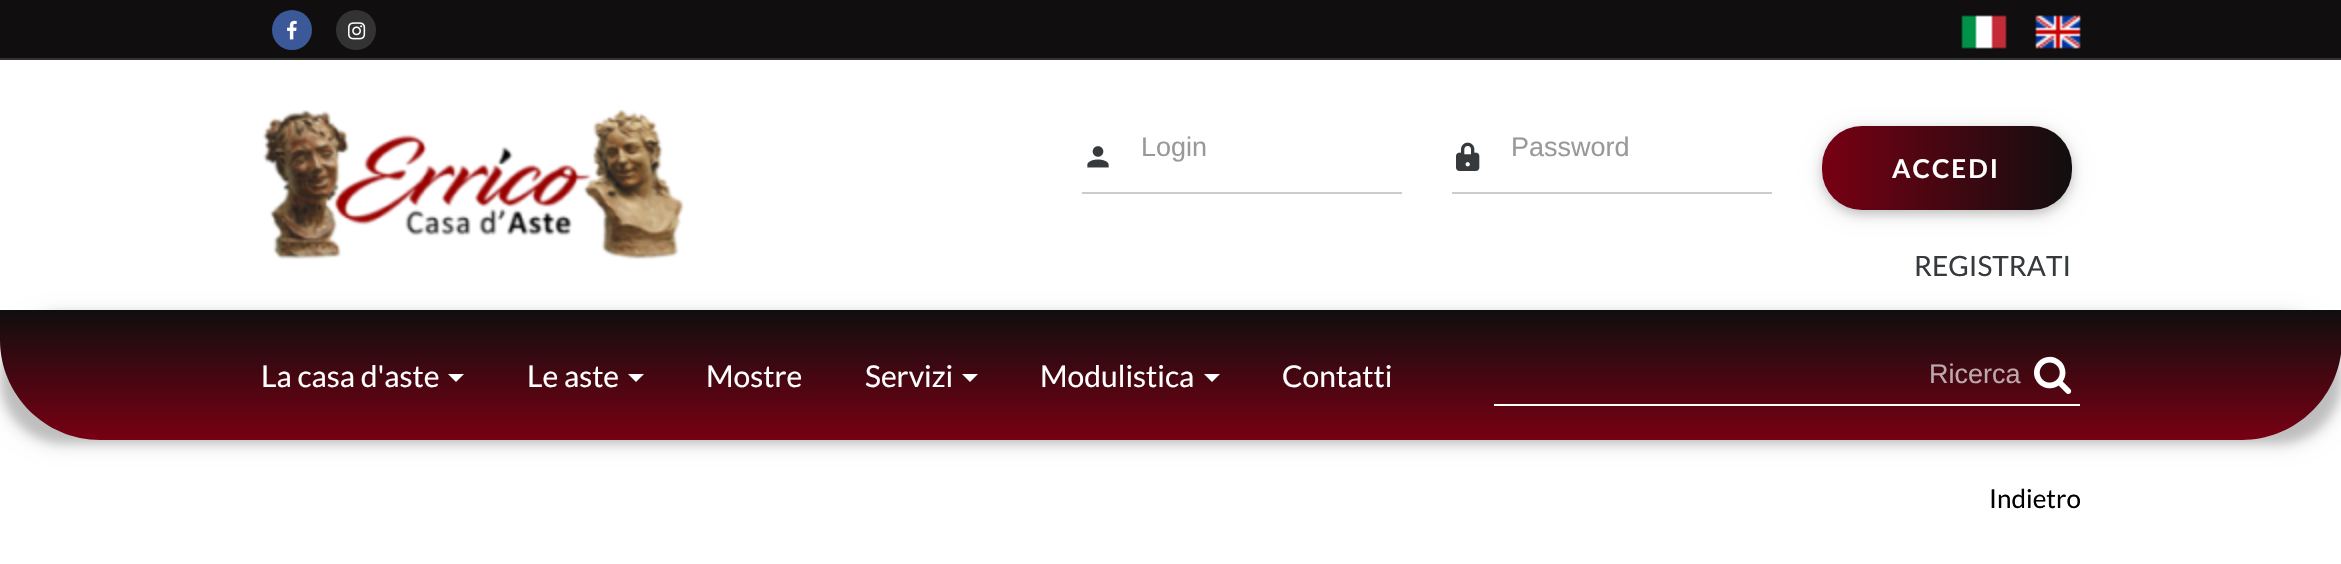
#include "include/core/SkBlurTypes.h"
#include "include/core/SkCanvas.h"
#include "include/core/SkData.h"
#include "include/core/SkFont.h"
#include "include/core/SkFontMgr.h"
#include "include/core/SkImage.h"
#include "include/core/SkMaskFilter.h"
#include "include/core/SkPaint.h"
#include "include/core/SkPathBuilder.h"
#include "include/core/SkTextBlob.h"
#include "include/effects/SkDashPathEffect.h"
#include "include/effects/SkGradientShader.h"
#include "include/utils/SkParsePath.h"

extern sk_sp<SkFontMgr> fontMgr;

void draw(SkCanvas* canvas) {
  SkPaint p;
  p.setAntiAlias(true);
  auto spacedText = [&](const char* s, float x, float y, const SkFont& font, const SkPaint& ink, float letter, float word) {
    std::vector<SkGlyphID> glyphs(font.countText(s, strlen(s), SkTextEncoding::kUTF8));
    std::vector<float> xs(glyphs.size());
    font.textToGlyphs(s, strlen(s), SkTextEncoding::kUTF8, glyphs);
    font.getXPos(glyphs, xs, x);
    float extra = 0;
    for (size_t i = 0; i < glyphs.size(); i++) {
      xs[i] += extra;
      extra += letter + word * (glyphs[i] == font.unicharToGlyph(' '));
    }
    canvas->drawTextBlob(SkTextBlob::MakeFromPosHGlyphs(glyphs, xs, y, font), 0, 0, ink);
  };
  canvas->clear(SK_ColorWHITE);
  p.setColor(SkColorSetRGB(16, 14, 15));
  canvas->drawRect(SkRect::MakeLTRB(0, 0, 2341, 58), p);
  p.setColor(SkColorSetRGB(51, 51, 51));
  canvas->drawRect(SkRect::MakeLTRB(0, 58, 2341, 60), p);
  p.setColor(SkColorSetRGB(59, 89, 152));
  canvas->drawCircle(292, 30, 20, p);
  canvas->drawImageRect(SkImages::DeferredFromEncodedData(SkData::MakeFromFileName("images/1.png")), SkRect::MakeLTRB(287, 20, 297, 40), SkSamplingOptions());
  p.setColor(SkColorSetRGB(51, 51, 51));
  canvas->drawCircle(356, 30, 20, p);
  canvas->drawImageRect(SkImages::DeferredFromEncodedData(SkData::MakeFromFileName("images/2.png")), SkRect::MakeLTRB(348, 22, 366, 40), SkSamplingOptions());
  canvas->drawImageRect(SkImages::DeferredFromEncodedData(SkData::MakeFromFileName("images/3.png")), SkRect::MakeLTRB(1961, 15, 2007, 49), SkSamplingOptions());
  canvas->drawImageRect(SkImages::DeferredFromEncodedData(SkData::MakeFromFileName("images/4.png")), SkRect::MakeLTRB(2035, 15, 2081, 49), SkSamplingOptions());
  canvas->drawImageRect(SkImages::DeferredFromEncodedData(SkData::MakeFromFileName("images/5.png")), SkRect::MakeLTRB(262, 110, 684, 260), SkSamplingOptions());
  canvas->drawImageRect(SkImages::DeferredFromEncodedData(SkData::MakeFromFileName("images/6.png")), SkRect::MakeLTRB(1087, 146, 1109, 168), SkSamplingOptions());
  p.setColor(SkColorSetRGB(204, 204, 204));
  canvas->drawRect(SkRect::MakeLTRB(1082, 192, 1402, 194), p);
  canvas->drawImageRect(SkImages::DeferredFromEncodedData(SkData::MakeFromFileName("images/7.png")), SkRect::MakeLTRB(1456, 142, 1480, 171), SkSamplingOptions());
  canvas->drawRect(SkRect::MakeLTRB(1452, 192, 1772, 194), p);
  p.setColor(SkColorSetARGB(31, 0, 0, 0));
  p.setMaskFilter(SkMaskFilter::MakeBlur(kNormal_SkBlurStyle, 10));
  canvas->drawRoundRect(SkRect::MakeLTRB(1822, 130, 2072, 214), 40, 40, p);
  p.setMaskFilter(nullptr);
  p.setColor(SkColorSetARGB(41, 0, 0, 0));
  p.setMaskFilter(SkMaskFilter::MakeBlur(kNormal_SkBlurStyle, 5));
  canvas->drawRoundRect(SkRect::MakeLTRB(1822, 130, 2072, 214), 40, 40, p);
  p.setMaskFilter(nullptr);
  {
    const SkColor colors[] = {SkColorSetRGB(120, 0, 19), SkColorSetRGB(16, 14, 15)};
    const float stops[] = {0, 1};
    const SkPoint ends[] = {{1822, 168}, {2072, 168}};
    p.setShader(SkGradientShader::MakeLinear(ends, colors, stops, 2, SkTileMode::kClamp));
    p.setAlpha(255);
  }
  canvas->drawRoundRect(SkRect::MakeLTRB(1822, 126, 2072, 210), 40, 40, p);
  p.setShader(nullptr);
  p.setColor(SkColorSetARGB(31, 0, 0, 0));
  p.setMaskFilter(SkMaskFilter::MakeBlur(kNormal_SkBlurStyle, 10));
  canvas->drawRoundRect(SkRect::MakeLTRB(0, 314, 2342, 444), 100, 100, p);
  p.setMaskFilter(nullptr);
  p.setColor(SkColorSetARGB(41, 0, 0, 0));
  p.setMaskFilter(SkMaskFilter::MakeBlur(kNormal_SkBlurStyle, 5));
  canvas->drawRoundRect(SkRect::MakeLTRB(0, 314, 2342, 444), 100, 100, p);
  p.setMaskFilter(nullptr);
  {
    const SkColor colors[] = {SkColorSetRGB(120, 0, 19), SkColorSetRGB(16, 14, 15)};
    const float stops[] = {0, 1};
    const SkPoint ends[] = {{1171, 440}, {1171, 310}};
    p.setShader(SkGradientShader::MakeLinear(ends, colors, stops, 2, SkTileMode::kClamp));
    p.setAlpha(255);
  }
  canvas->drawPath(SkPathBuilder().moveTo(0, 310).lineTo(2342, 310).lineTo(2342, 340).cubicTo(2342, 395, 2297, 440, 2242, 440).lineTo(100, 440).cubicTo(45, 440, 0, 395, 0, 340).close().detach(), p);
  p.setShader(nullptr);
  p.setColor(SK_ColorWHITE);
  canvas->drawPath(SkPathBuilder().moveTo(448, 374).lineTo(464, 374).lineTo(456, 382).close().detach(), p);
  canvas->drawPath(SkPathBuilder().moveTo(628, 374).lineTo(644, 374).lineTo(636, 382).close().detach(), p);
  canvas->drawPath(SkPathBuilder().moveTo(962, 374).lineTo(978, 374).lineTo(970, 382).close().detach(), p);
  canvas->drawPath(SkPathBuilder().moveTo(1204, 374).lineTo(1220, 374).lineTo(1212, 382).close().detach(), p);
  canvas->drawRect(SkRect::MakeLTRB(1494, 404, 2080, 406), p);
  canvas->drawImageRect(SkImages::DeferredFromEncodedData(SkData::MakeFromFileName("images/8.png")), SkRect::MakeLTRB(2034, 356, 2072, 394), SkSamplingOptions());
  SkFont font1(fontMgr->matchFamilyStyle("Liberation Sans", SkFontStyle::Normal()), 27);
  font1.setSubpixel(true);
  p.setColor(SkColorSetRGB(153, 153, 153));
  canvas->drawString("Login", 1141, 156, font1, p);
  canvas->drawString("Password", 1511, 156, font1, p);
  SkFont font2(fontMgr->matchFamilyStyle("Lato", SkFontStyle::Bold()), 26);
  font2.setSubpixel(true);
  p.setColor(SK_ColorWHITE);
  spacedText("ACCEDI", 1892, 178, font2, p, 2, 0);
  SkFont font3(fontMgr->matchFamilyStyle("Lato", SkFontStyle::Normal()), 28);
  font3.setSubpixel(true);
  p.setColor(SkColorSetRGB(55, 58, 60));
  canvas->drawString("REGISTRATI", 1914, 276, font3, p);
  SkFont font4(fontMgr->matchFamilyStyle("Lato", SkFontStyle::Normal()), 30);
  font4.setSubpixel(true);
  p.setColor(SK_ColorWHITE);
  canvas->drawString("La casa d'aste", 261, 387, font4, p);
  canvas->drawString("Le aste", 527, 387, font4, p);
  canvas->drawString("Mostre", 706, 387, font4, p);
  canvas->drawString("Servizi", 865, 387, font4, p);
  canvas->drawString("Modulistica", 1040, 387, font4, p);
  canvas->drawString("Contatti", 1282, 387, font4, p);
  p.setColor(SkColorSetRGB(189, 168, 172));
  canvas->drawString("Ricerca", 1929, 383, font1, p);
  SkFont font5(fontMgr->matchFamilyStyle("Lato", SkFontStyle::Normal()), 26);
  font5.setSubpixel(true);
  p.setColor(SK_ColorBLACK);
  canvas->drawString("Indietro", 1989, 508, font5, p);
}
